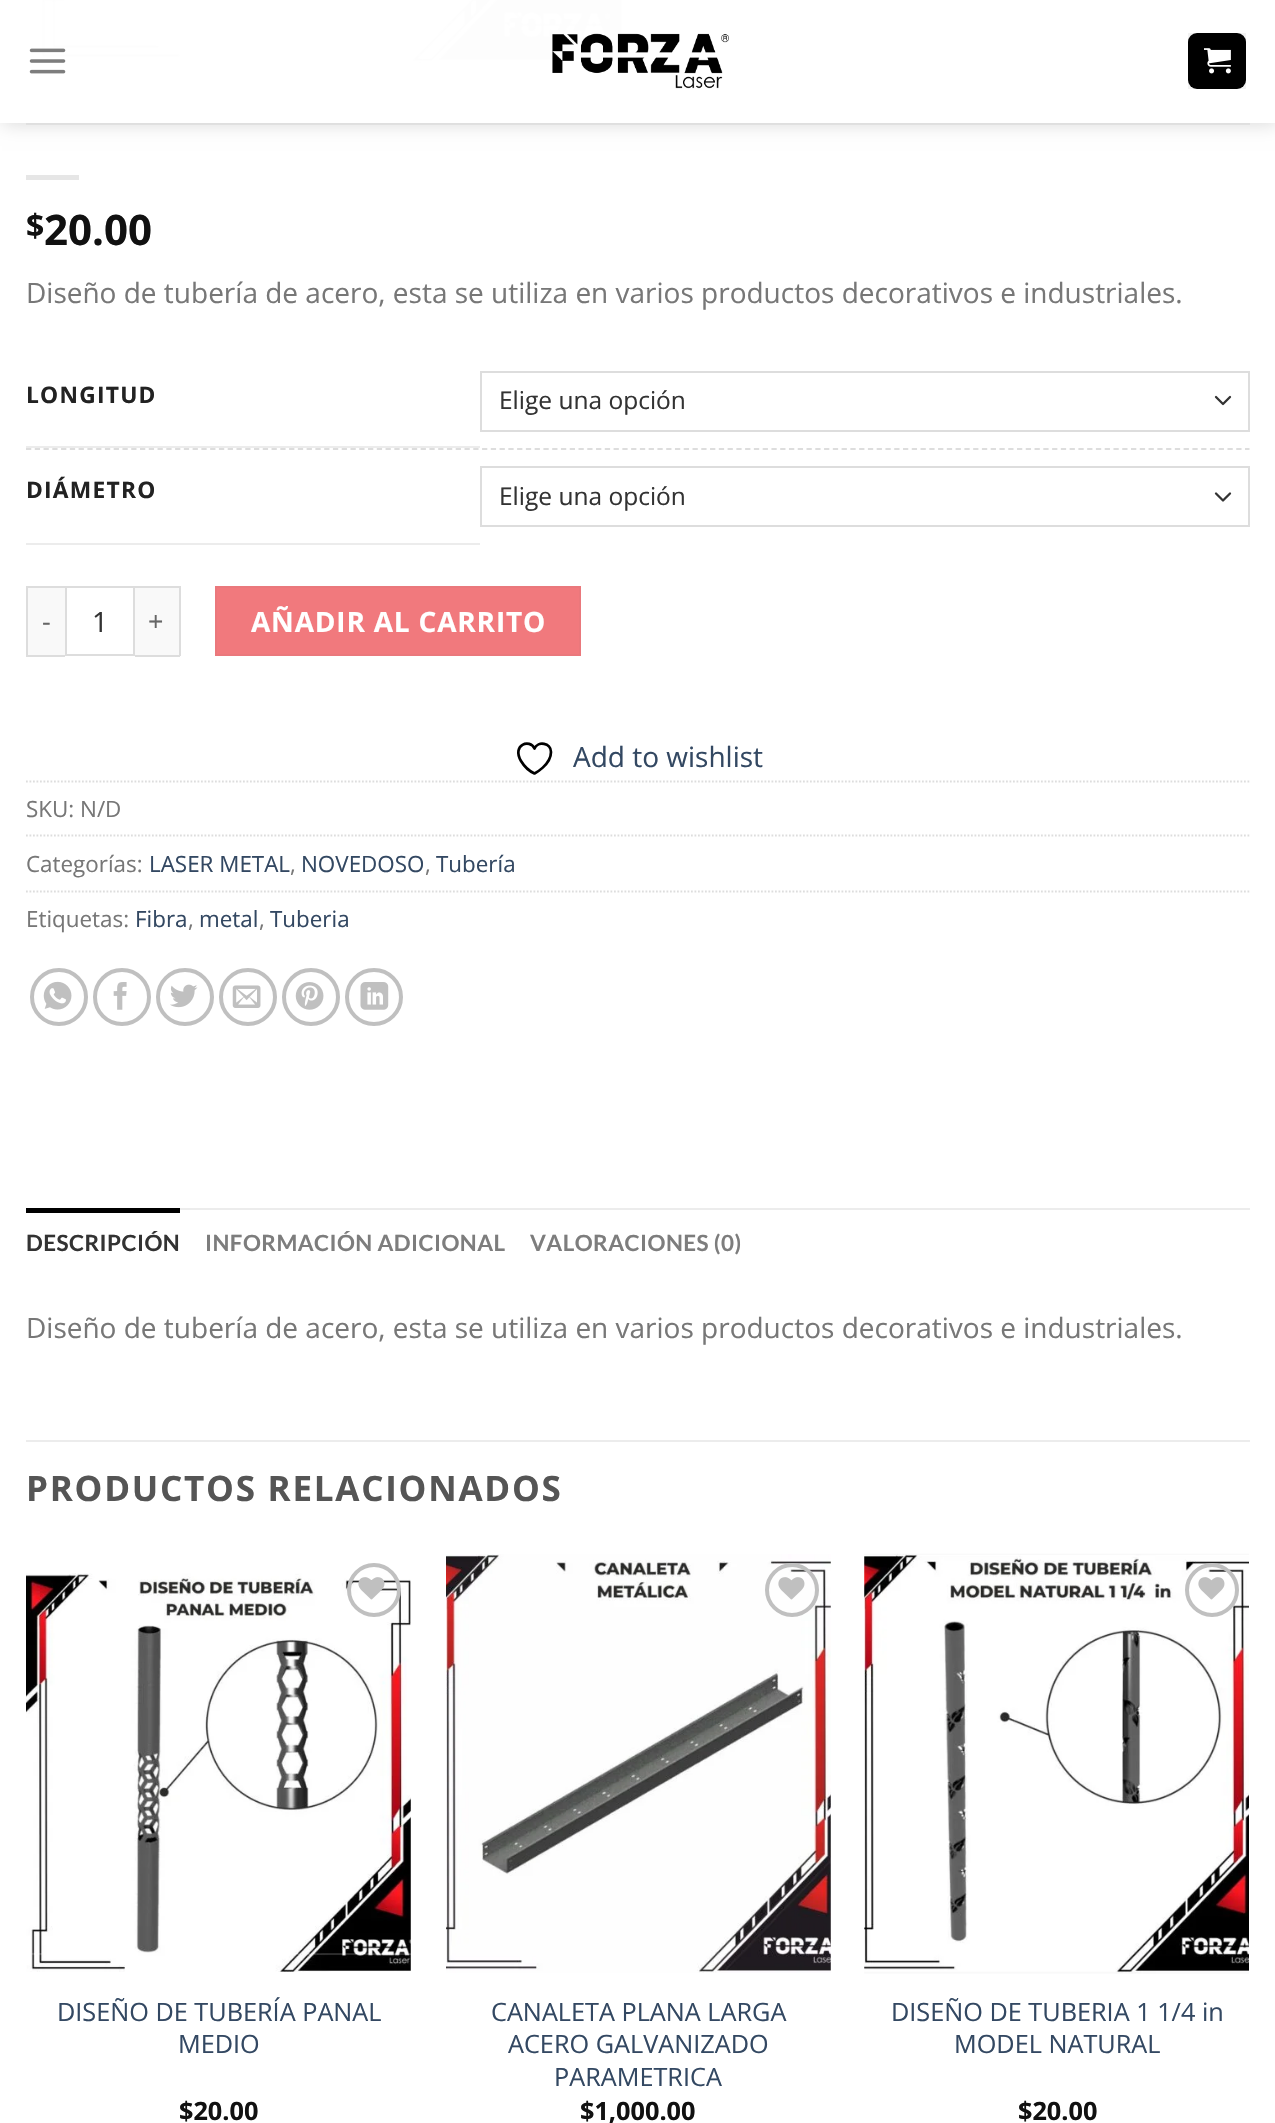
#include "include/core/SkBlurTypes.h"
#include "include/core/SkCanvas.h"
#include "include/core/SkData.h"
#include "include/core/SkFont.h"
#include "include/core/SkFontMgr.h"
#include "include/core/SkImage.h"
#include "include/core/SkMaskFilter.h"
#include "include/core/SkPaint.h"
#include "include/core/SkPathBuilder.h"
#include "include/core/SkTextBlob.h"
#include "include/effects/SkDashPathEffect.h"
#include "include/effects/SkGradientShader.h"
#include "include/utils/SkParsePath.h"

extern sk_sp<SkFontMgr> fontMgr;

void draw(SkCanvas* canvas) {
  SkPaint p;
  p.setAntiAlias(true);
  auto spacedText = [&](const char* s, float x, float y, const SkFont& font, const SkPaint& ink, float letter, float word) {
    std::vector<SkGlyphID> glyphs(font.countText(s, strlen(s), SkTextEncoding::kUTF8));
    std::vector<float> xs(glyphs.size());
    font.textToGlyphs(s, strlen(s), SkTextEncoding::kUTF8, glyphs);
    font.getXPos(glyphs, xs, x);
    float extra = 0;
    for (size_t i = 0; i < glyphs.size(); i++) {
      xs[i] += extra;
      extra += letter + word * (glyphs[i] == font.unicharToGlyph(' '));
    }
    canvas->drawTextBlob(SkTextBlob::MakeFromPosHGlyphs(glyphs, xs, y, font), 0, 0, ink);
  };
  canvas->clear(SK_ColorWHITE);
  canvas->drawImageRect(SkImages::DeferredFromEncodedData(SkData::MakeFromFileName("images/4.png")), SkRect::MakeLTRB(40, 0, 624, 63), SkSamplingOptions());
  canvas->save();
  canvas->clipPath(SkPathBuilder(SkPathFillType::kEvenOdd).moveTo(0, 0).lineTo(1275, 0).lineTo(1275, 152).lineTo(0, 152).close().moveTo(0, 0).lineTo(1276, 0).lineTo(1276, 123).lineTo(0, 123).close().detach(), true);
  p.setColor(SkColorSetARGB(38, 0, 0, 0));
  p.setMaskFilter(SkMaskFilter::MakeBlur(kNormal_SkBlurStyle, 9));
  canvas->drawRect(SkRect::MakeLTRB(2, 2, 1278, 124), p);
  p.setMaskFilter(nullptr);
  canvas->restore();
  p.setColor(SkColorSetARGB(230, 255, 255, 255));
  canvas->drawRect(SkRect::MakeLTRB(0, 0, 1275, 123), p);
  canvas->drawRect(SkRect::MakeLTRB(41, 0, 623, 62), p);
  canvas->drawImageRect(SkImages::DeferredFromEncodedData(SkData::MakeFromFileName("images/1.png")), SkRect::MakeLTRB(29, 48, 66, 74), SkSamplingOptions());
  canvas->drawImageRect(SkImages::DeferredFromEncodedData(SkData::MakeFromFileName("images/2.png")), SkRect::MakeLTRB(552, 33, 729, 89), SkSamplingOptions());
  p.setColor(SK_ColorBLACK);
  canvas->drawRoundRect(SkRect::MakeLTRB(1188, 33, 1246, 89), 9, 9, p);
  p.setStyle(SkPaint::kStroke_Style);
  p.setStrokeWidth(2);
  p.setColor(SkColorSetARGB(13, 0, 0, 0));
  canvas->drawRect(SkRect::MakeLTRB(1189, 34, 1245, 88), p);
  canvas->drawImageRect(SkImages::DeferredFromEncodedData(SkData::MakeFromFileName("images/3.png")), SkRect::MakeLTRB(1204, 48, 1231, 74), SkSamplingOptions());
  p.setStyle(SkPaint::kFill_Style);
  p.setColor(SkColorSetARGB(26, 119, 119, 119));
  canvas->drawRect(SkRect::MakeLTRB(26, 123, 1250, 125), p);
  p.setColor(SkColorSetRGB(230, 230, 230));
  canvas->drawRect(SkRect::MakeLTRB(26, 175, 79, 180), p);
  p.setColor(SkColorSetRGB(236, 236, 236));
  canvas->drawRect(SkRect::MakeLTRB(26, 446, 480, 448), p);
  p.setStyle(SkPaint::kStroke_Style);
  p.setStrokeWidth(2.3f);
  p.setStrokeCap(SkPaint::kRound_Cap);
  p.setStrokeJoin(SkPaint::kRound_Join);
  p.setColor(SkColorSetRGB(51, 51, 51));
  canvas->drawPath(SkPathBuilder().moveTo(1216, 397).lineTo(1223, 404).lineTo(1230, 397).detach(), p);
  p.setStrokeWidth(2);
  p.setStrokeCap(SkPaint::kButt_Cap);
  p.setStrokeJoin(SkPaint::kMiter_Join);
  p.setColor(SkColorSetRGB(221, 221, 221));
  canvas->drawRect(SkRect::MakeLTRB(481, 372, 1249, 431), p);
  p.setStrokeWidth(1.8f);
  p.setPathEffect(SkDashPathEffect::Make({{5.25f, 3.52f}}, 0));
  canvas->drawPath(SkPathBuilder().moveTo(26, 449).lineTo(1249.5f, 449).detach(), p);
  p.setPathEffect(nullptr);
  p.setStyle(SkPaint::kFill_Style);
  p.setColor(SkColorSetRGB(236, 236, 236));
  canvas->drawRect(SkRect::MakeLTRB(26, 543, 480, 545), p);
  p.setStyle(SkPaint::kStroke_Style);
  p.setStrokeWidth(2.3f);
  p.setStrokeCap(SkPaint::kRound_Cap);
  p.setStrokeJoin(SkPaint::kRound_Join);
  p.setColor(SkColorSetRGB(51, 51, 51));
  canvas->drawPath(SkPathBuilder().moveTo(1216, 493.5f).lineTo(1223, 500.5f).lineTo(1230, 493.5f).detach(), p);
  p.setStrokeWidth(2);
  p.setStrokeCap(SkPaint::kButt_Cap);
  p.setStrokeJoin(SkPaint::kMiter_Join);
  p.setColor(SkColorSetRGB(221, 221, 221));
  canvas->drawRect(SkRect::MakeLTRB(481, 467, 1249, 526), p);
  p.setStyle(SkPaint::kFill_Style);
  p.setColor(SkColorSetRGB(249, 249, 249));
  canvas->drawRect(SkRect::MakeLTRB(28, 588, 65, 655), p);
  p.setColor(SkColorSetRGB(221, 221, 221));
  canvas->drawRect(SkRect::MakeLTRB(26, 586, 65, 588), p);
  canvas->drawRect(SkRect::MakeLTRB(26, 655, 65, 657), p);
  canvas->drawRect(SkRect::MakeLTRB(26, 586, 28, 656), p);
  p.setStyle(SkPaint::kStroke_Style);
  canvas->drawRect(SkRect::MakeLTRB(66, 587, 134, 655), p);
  p.setStyle(SkPaint::kFill_Style);
  p.setColor(SkColorSetRGB(249, 249, 249));
  canvas->drawRect(SkRect::MakeLTRB(135, 588, 179, 655), p);
  p.setColor(SkColorSetRGB(221, 221, 221));
  canvas->drawRect(SkRect::MakeLTRB(135, 586, 180, 588), p);
  canvas->drawRect(SkRect::MakeLTRB(179, 586, 181, 656), p);
  canvas->drawRect(SkRect::MakeLTRB(135, 655, 180, 657), p);
  p.setColor(SkColorSetRGB(241, 121, 125));
  canvas->drawRect(SkRect::MakeLTRB(216, 587, 580, 655), p);
  p.setStyle(SkPaint::kStroke_Style);
  p.setColor(SkColorSetRGB(234, 120, 124));
  canvas->drawRect(SkRect::MakeLTRB(216, 587, 580, 655), p);
  p.setStrokeWidth(2.7f);
  p.setStrokeCap(SkPaint::kRound_Cap);
  p.setStrokeJoin(SkPaint::kRound_Join);
  p.setColor(SK_ColorBLACK);
  canvas->drawPath(SkPathBuilder().moveTo(551, 752).cubicTo(551, 743, 538, 740.5f, 534.5f, 748.5f).cubicTo(530, 738.5f, 511.5f, 744.5f, 521, 761).cubicTo(524, 766, 529, 771, 534.5f, 773.5f).cubicTo(534.5f, 773.5f, 551, 765, 551, 752).close().detach(), p);
  p.setStrokeWidth(1.8f);
  p.setStrokeCap(SkPaint::kButt_Cap);
  p.setStrokeJoin(SkPaint::kMiter_Join);
  p.setColor(SkColorSetRGB(221, 221, 221));
  p.setPathEffect(SkDashPathEffect::Make({{1.75f, 1.75f}}, 0));
  canvas->drawPath(SkPathBuilder().moveTo(26, 781.5f).lineTo(1249.5f, 781.5f).detach(), p);
  p.setPathEffect(nullptr);
  p.setPathEffect(SkDashPathEffect::Make({{1.75f, 1.75f}}, 0));
  canvas->drawPath(SkPathBuilder().moveTo(26, 835.5f).lineTo(1249.5f, 835.5f).detach(), p);
  p.setPathEffect(nullptr);
  p.setPathEffect(SkDashPathEffect::Make({{1.75f, 1.75f}}, 0));
  canvas->drawPath(SkPathBuilder().moveTo(26, 891.5f).lineTo(1249.5f, 891.5f).detach(), p);
  p.setPathEffect(nullptr);
  p.setStrokeWidth(4);
  p.setColor(SkColorSetRGB(192, 192, 192));
  canvas->drawCircle(59, 997, 27, p);
  canvas->drawImageRect(SkImages::DeferredFromEncodedData(SkData::MakeFromFileName("images/5.png")), SkRect::MakeLTRB(43, 981, 72, 1010), SkSamplingOptions());
  canvas->drawCircle(122, 997, 27, p);
  canvas->drawImageRect(SkImages::DeferredFromEncodedData(SkData::MakeFromFileName("images/6.png")), SkRect::MakeLTRB(113, 982, 127, 1010), SkSamplingOptions());
  canvas->drawCircle(185, 997, 27, p);
  canvas->drawImageRect(SkImages::DeferredFromEncodedData(SkData::MakeFromFileName("images/7.png")), SkRect::MakeLTRB(170, 984, 198, 1008), SkSamplingOptions());
  canvas->drawCircle(248, 997, 27, p);
  canvas->drawImageRect(SkImages::DeferredFromEncodedData(SkData::MakeFromFileName("images/8.png")), SkRect::MakeLTRB(232, 985, 261, 1008), SkSamplingOptions());
  canvas->drawCircle(311, 997, 27, p);
  canvas->drawImageRect(SkImages::DeferredFromEncodedData(SkData::MakeFromFileName("images/9.png")), SkRect::MakeLTRB(295, 982, 324, 1010), SkSamplingOptions());
  canvas->drawCircle(374, 997, 27, p);
  canvas->drawImageRect(SkImages::DeferredFromEncodedData(SkData::MakeFromFileName("images/10.png")), SkRect::MakeLTRB(360, 982, 389, 1010), SkSamplingOptions());
  p.setStyle(SkPaint::kFill_Style);
  p.setColor(SkColorSetRGB(236, 236, 236));
  canvas->drawRect(SkRect::MakeLTRB(180, 1208, 1250, 1210), p);
  p.setColor(SK_ColorBLACK);
  canvas->drawRect(SkRect::MakeLTRB(26, 1208, 180, 1213), p);
  p.setColor(SkColorSetRGB(236, 236, 236));
  canvas->drawRect(SkRect::MakeLTRB(26, 1440, 1250, 1442), p);
  canvas->drawImageRect(SkImages::DeferredFromEncodedData(SkData::MakeFromFileName("images/12.png")), SkRect::MakeLTRB(26, 1573, 411, 1972), SkSamplingOptions());
  p.setStyle(SkPaint::kStroke_Style);
  p.setColor(SkColorSetRGB(192, 192, 192));
  canvas->drawCircle(374, 1590, 25, p);
  canvas->drawImageRect(SkImages::DeferredFromEncodedData(SkData::MakeFromFileName("images/11.png")), SkRect::MakeLTRB(358, 1577, 385, 1600), SkSamplingOptions());
  canvas->drawImageRect(SkImages::DeferredFromEncodedData(SkData::MakeFromFileName("images/13.png")), SkRect::MakeLTRB(446, 1554, 831, 1973), SkSamplingOptions());
  canvas->drawCircle(792, 1590, 25, p);
  canvas->drawImageRect(SkImages::DeferredFromEncodedData(SkData::MakeFromFileName("images/14.png")), SkRect::MakeLTRB(778, 1577, 805, 1600), SkSamplingOptions());
  canvas->drawImageRect(SkImages::DeferredFromEncodedData(SkData::MakeFromFileName("images/15.png")), SkRect::MakeLTRB(864, 1553, 1249, 1974), SkSamplingOptions());
  canvas->drawCircle(1212, 1590, 25, p);
  canvas->drawImageRect(SkImages::DeferredFromEncodedData(SkData::MakeFromFileName("images/16.png")), SkRect::MakeLTRB(1198, 1577, 1225, 1600), SkSamplingOptions());
  SkFont font1(fontMgr->matchFamilyStyle("Open Sans", SkFontStyle::Bold()), 32);
  font1.setSubpixel(true);
  p.setStyle(SkPaint::kFill_Style);
  p.setColor(SkColorSetRGB(17, 17, 17));
  canvas->drawString("$", 26, 237, font1, p);
  SkFont font2(fontMgr->matchFamilyStyle("Open Sans", SkFontStyle::Bold()), 42);
  font2.setSubpixel(true);
  canvas->drawString("20.00", 44, 245, font2, p);
  SkFont font3(fontMgr->matchFamilyStyle("Open Sans", SkFontStyle::Normal()), 28);
  font3.setSubpixel(true);
  p.setColor(SkColorSetRGB(119, 119, 119));
  canvas->drawString("Diseño de tubería de acero, esta se utiliza en varios productos decorativos e industriales.", 26, 303, font3, p);
  SkFont font4(fontMgr->matchFamilyStyle("Open Sans", SkFontStyle::Bold()), 22.75f);
  font4.setSubpixel(true);
  p.setColor(SkColorSetRGB(34, 34, 34));
  spacedText("LONGITUD", 26, 403, font4, p, 1.25f, 0);
  SkFont font5(fontMgr->matchFamilyStyle("Open Sans", SkFontStyle::Normal()), 24.5f);
  font5.setSubpixel(true);
  p.setColor(SkColorSetRGB(51, 51, 51));
  canvas->drawString("Elige una opción", 499, 409, font5, p);
  p.setColor(SkColorSetRGB(34, 34, 34));
  spacedText("DIÁMETRO", 26, 498, font4, p, 1.25f, 0);
  p.setColor(SkColorSetRGB(51, 51, 51));
  canvas->drawString("Elige una opción", 499, 505, font5, p);
  SkFont font6(fontMgr->matchFamilyStyle("Open Sans", SkFontStyle::Normal()), 27);
  font6.setSubpixel(true);
  p.setColor(SkColorSetRGB(102, 102, 102));
  spacedText("-", 42, 631, font6, p, 1, 0);
  p.setColor(SkColorSetRGB(51, 51, 51));
  canvas->drawString("1", 92, 632, font3, p);
  p.setColor(SkColorSetRGB(102, 102, 102));
  spacedText("+", 148, 631, font6, p, 1, 0);
  SkFont font7(fontMgr->matchFamilyStyle("Open Sans", SkFontStyle::Bold()), 28);
  font7.setSubpixel(true);
  p.setColor(SK_ColorWHITE);
  spacedText("AÑADIR AL CARRITO", 251, 632, font7, p, 0.8f, 0);
  p.setColor(SkColorSetRGB(51, 72, 98));
  canvas->drawString("Add to wishlist", 573, 767, font3, p);
  SkFont font8(fontMgr->matchFamilyStyle("Open Sans", SkFontStyle::Normal()), 22.4f);
  font8.setSubpixel(true);
  p.setColor(SkColorSetRGB(119, 119, 119));
  canvas->drawString("SKU: N/D", 26, 817, font8, p);
  canvas->drawString("Categorías:", 26, 872, font8, p);
  p.setColor(SkColorSetRGB(51, 72, 98));
  canvas->drawString("LASER METAL", 149, 872, font8, p);
  p.setColor(SkColorSetRGB(119, 119, 119));
  canvas->drawString(",", 290, 872, font8, p);
  p.setColor(SkColorSetRGB(51, 72, 98));
  canvas->drawString("NOVEDOSO", 301, 872, font8, p);
  p.setColor(SkColorSetRGB(119, 119, 119));
  canvas->drawString(",", 425, 872, font8, p);
  p.setColor(SkColorSetRGB(51, 72, 98));
  canvas->drawString("Tubería", 436, 872, font8, p);
  p.setColor(SkColorSetRGB(119, 119, 119));
  canvas->drawString("Etiquetas:", 26, 927, font8, p);
  p.setColor(SkColorSetRGB(51, 72, 98));
  canvas->drawString("Fibra", 135, 927, font8, p);
  p.setColor(SkColorSetRGB(119, 119, 119));
  canvas->drawString(",", 188, 927, font8, p);
  p.setColor(SkColorSetRGB(51, 72, 98));
  canvas->drawString("metal", 199, 927, font8, p);
  p.setColor(SkColorSetRGB(119, 119, 119));
  canvas->drawString(",", 259, 927, font8, p);
  p.setColor(SkColorSetRGB(51, 72, 98));
  canvas->drawString("Tuberia", 270, 927, font8, p);
  SkFont font9(fontMgr->matchFamilyStyle("Lato", SkFontStyle::Bold()), 22.4f);
  font9.setSubpixel(true);
  p.setColor(SkColorSetRGB(51, 51, 51));
  spacedText("DESCRIPCIÓN", 26, 1251, font9, p, 0.45f, 0);
  p.setColor(SkColorSetRGB(125, 125, 125));
  spacedText("INFORMACIÓN ADICIONAL", 205, 1251, font9, p, 0.45f, 0);
  spacedText("VALORACIONES (0)", 530, 1251, font9, p, 0.45f, 0);
  p.setColor(SkColorSetRGB(119, 119, 119));
  canvas->drawString("Diseño de tubería de acero, esta se utiliza en varios productos decorativos e industriales.", 26, 1338, font3, p);
  SkFont font10(fontMgr->matchFamilyStyle("Open Sans", SkFontStyle::Bold()), 35);
  font10.setSubpixel(true);
  p.setColor(SkColorSetRGB(85, 85, 85));
  spacedText("PRODUCTOS RELACIONADOS", 26, 1501, font10, p, 1.75f, 0);
  SkFont font11(fontMgr->matchFamilyStyle("Open Sans", SkFontStyle::Normal()), 25.25f);
  font11.setSubpixel(true);
  p.setColor(SkColorSetRGB(51, 72, 98));
  canvas->drawString("DISEÑO DE TUBERÍA PANAL", 57, 2021, font11, p);
  canvas->drawString("MEDIO", 178, 2053, font11, p);
  SkFont font12(fontMgr->matchFamilyStyle("Open Sans", SkFontStyle::Bold()), 25.25f);
  font12.setSubpixel(true);
  p.setColor(SkColorSetRGB(17, 17, 17));
  canvas->drawString("$20.00", 179, 2120, font12, p);
  p.setColor(SkColorSetRGB(51, 72, 98));
  canvas->drawString("CANALETA PLANA LARGA", 491, 2021, font11, p);
  canvas->drawString("ACERO GALVANIZADO", 508, 2053, font11, p);
  canvas->drawString("PARAMETRICA", 554, 2086, font11, p);
  p.setColor(SkColorSetRGB(17, 17, 17));
  canvas->drawString("$1,000.00", 580, 2120, font12, p);
  p.setColor(SkColorSetRGB(51, 72, 98));
  canvas->drawString("DISEÑO DE TUBERIA 1 1/4 in", 891, 2021, font11, p);
  canvas->drawString("MODEL NATURAL", 954, 2053, font11, p);
  p.setColor(SkColorSetRGB(17, 17, 17));
  canvas->drawString("$20.00", 1018, 2120, font12, p);
}
